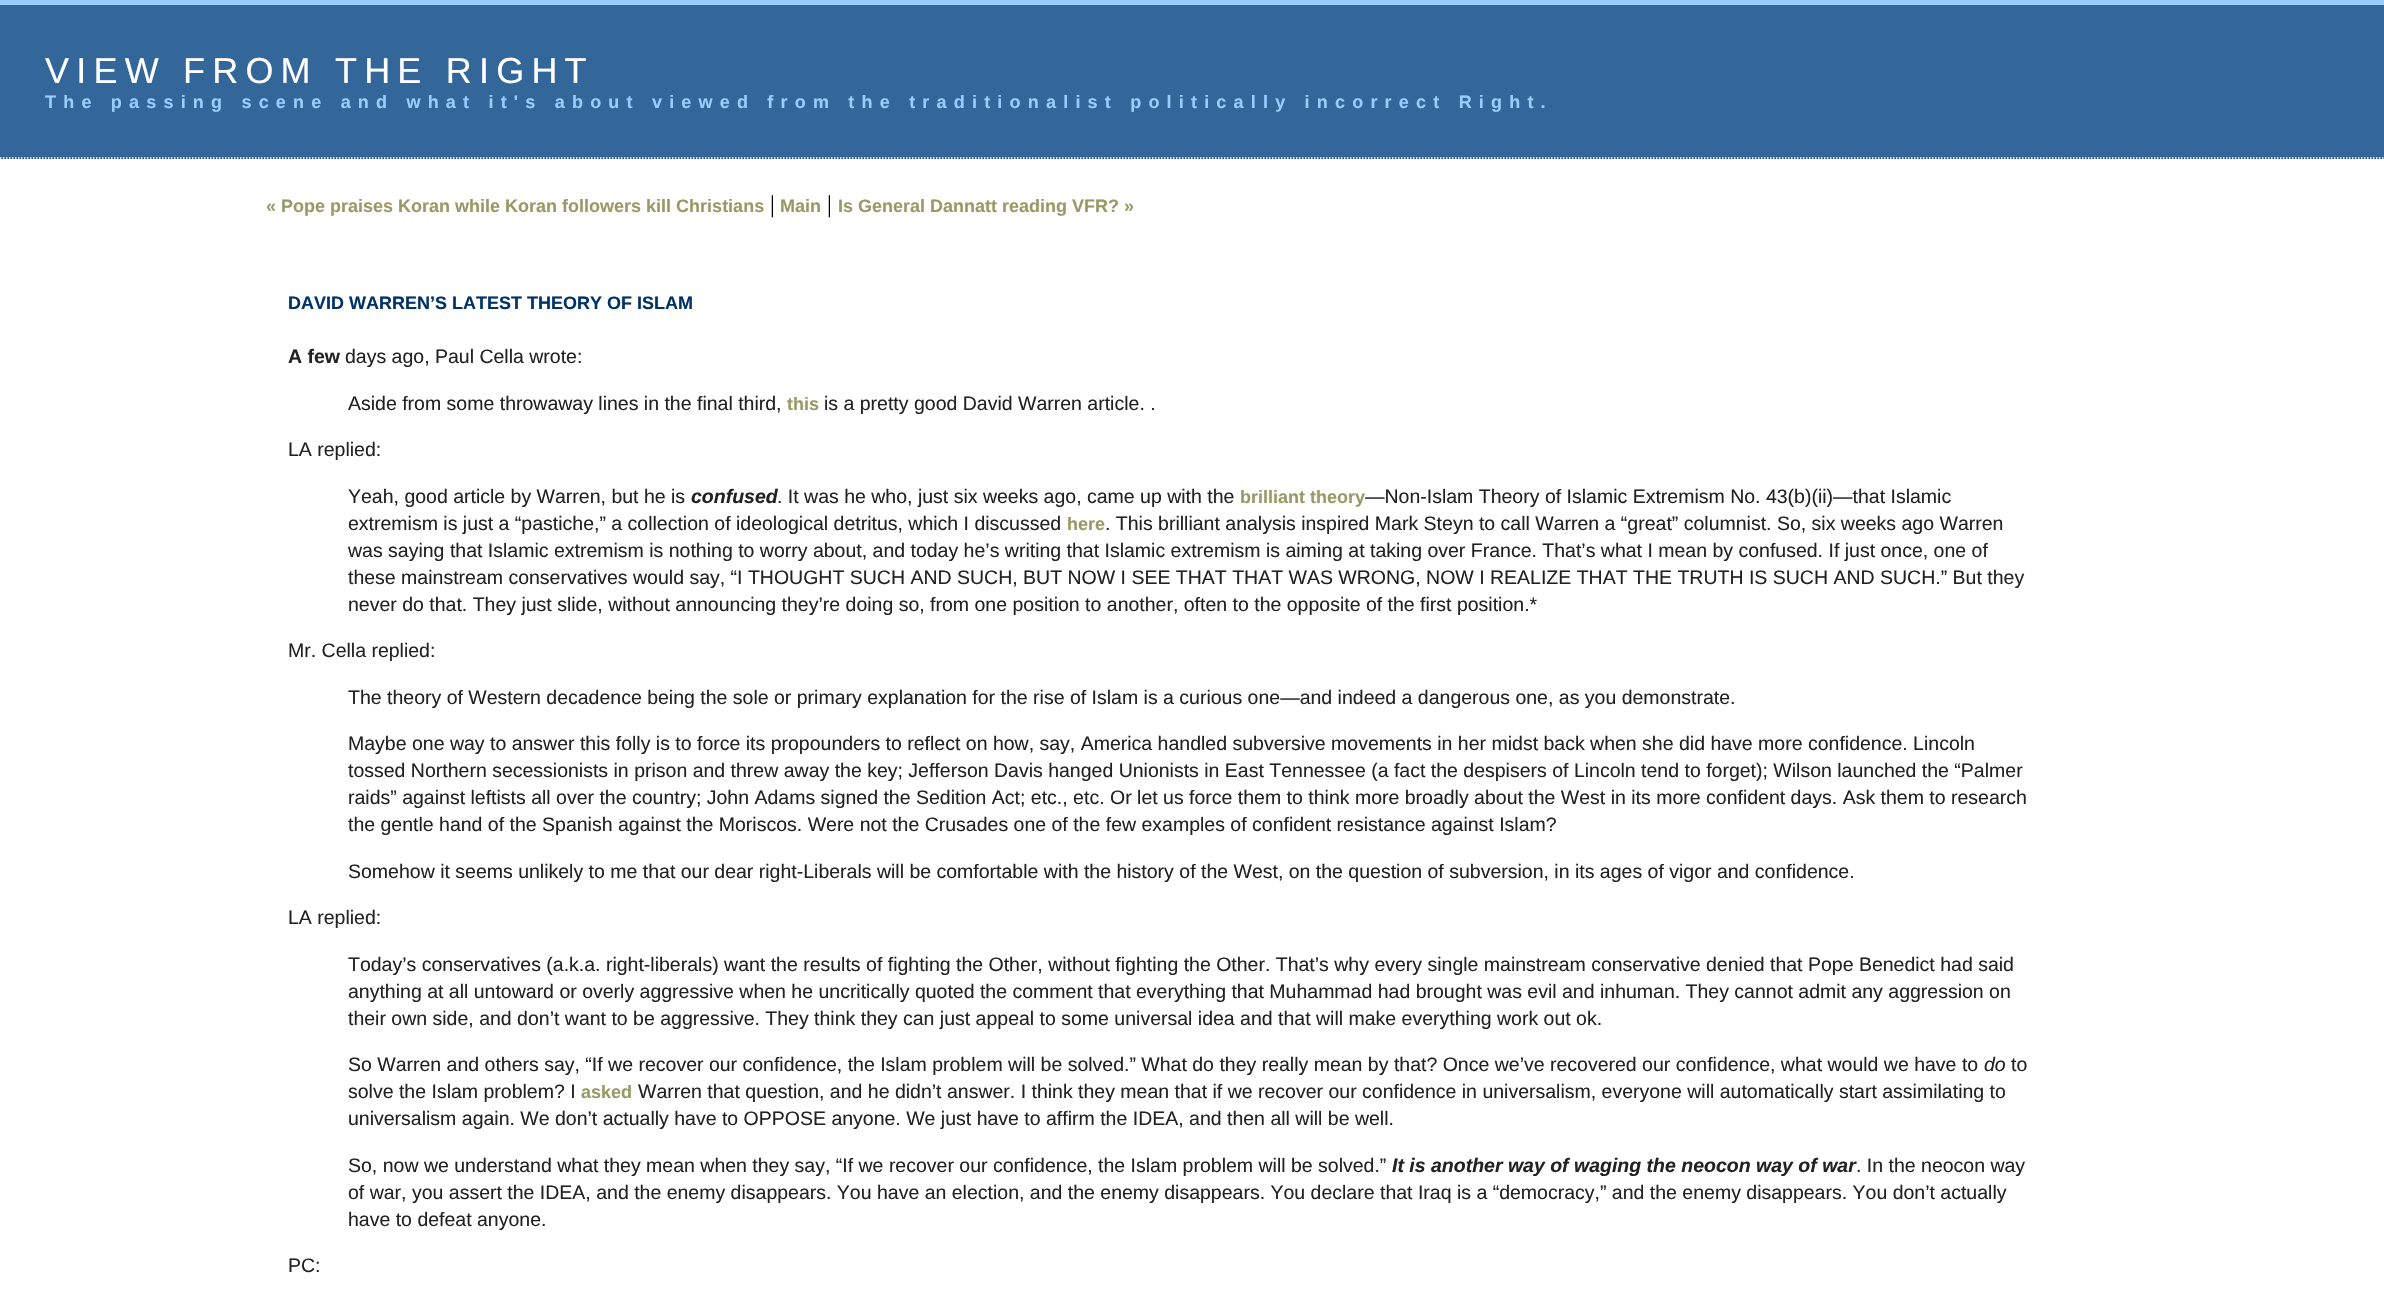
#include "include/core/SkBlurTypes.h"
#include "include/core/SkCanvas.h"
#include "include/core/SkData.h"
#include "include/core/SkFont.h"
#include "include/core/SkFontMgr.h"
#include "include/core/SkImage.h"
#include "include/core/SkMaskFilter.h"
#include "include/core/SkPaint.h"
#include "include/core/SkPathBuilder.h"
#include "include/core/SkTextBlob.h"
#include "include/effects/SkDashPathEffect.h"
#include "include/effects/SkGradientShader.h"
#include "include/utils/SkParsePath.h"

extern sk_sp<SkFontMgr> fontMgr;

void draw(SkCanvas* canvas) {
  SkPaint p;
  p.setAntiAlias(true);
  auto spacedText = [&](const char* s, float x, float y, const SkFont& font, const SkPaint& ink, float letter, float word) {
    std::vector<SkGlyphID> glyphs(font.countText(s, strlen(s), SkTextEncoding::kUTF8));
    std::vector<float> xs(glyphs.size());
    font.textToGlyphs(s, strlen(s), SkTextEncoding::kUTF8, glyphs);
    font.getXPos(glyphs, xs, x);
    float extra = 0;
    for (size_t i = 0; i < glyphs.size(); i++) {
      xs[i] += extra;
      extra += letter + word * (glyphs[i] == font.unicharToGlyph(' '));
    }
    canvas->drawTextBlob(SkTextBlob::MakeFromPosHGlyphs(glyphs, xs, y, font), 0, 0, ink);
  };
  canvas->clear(SK_ColorWHITE);
  p.setColor(SkColorSetRGB(51, 102, 153));
  canvas->drawRect(SkRect::MakeLTRB(0, 5, 2384, 159), p);
  p.setColor(SkColorSetRGB(153, 204, 255));
  canvas->drawRect(SkRect::MakeLTRB(0, 0, 2384, 5), p);
  p.setStyle(SkPaint::kStroke_Style);
  p.setStrokeWidth(1.5f);
  p.setColor(SK_ColorWHITE);
  p.setPathEffect(SkDashPathEffect::Make({{1.5f, 1.5f}}, 0));
  canvas->drawPath(SkPathBuilder().moveTo(0, 158).lineTo(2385, 158).detach(), p);
  p.setPathEffect(nullptr);
  SkFont font1(fontMgr->matchFamilyStyle("Liberation Sans", SkFontStyle::Normal()), 36);
  font1.setSubpixel(true);
  p.setStyle(SkPaint::kFill_Style);
  spacedText("VIEW FROM THE RIGHT", 45, 83, font1, p, 7.2f, 0);
  SkFont font2(fontMgr->matchFamilyStyle("Liberation Sans", SkFontStyle::Bold()), 18);
  font2.setSubpixel(true);
  p.setColor(SkColorSetRGB(153, 204, 255));
  spacedText("The passing scene and what it's about viewed from the traditionalist politically incorrect Right.", 45, 108, font2, p, 7.2f, 0);
  p.setColor(SkColorSetRGB(153, 153, 102));
  canvas->drawString("« Pope praises Koran while Koran followers kill Christians", 266, 212, font2, p);
  SkFont font3(fontMgr->matchFamilyStyle("Liberation Serif", SkFontStyle::Normal()), 24);
  font3.setSubpixel(true);
  p.setColor(SK_ColorBLACK);
  canvas->drawString("|", 770, 212, font3, p);
  p.setColor(SkColorSetRGB(153, 153, 102));
  canvas->drawString("Main", 780, 212, font2, p);
  p.setColor(SK_ColorBLACK);
  canvas->drawString("|", 827, 212, font3, p);
  p.setColor(SkColorSetRGB(153, 153, 102));
  canvas->drawString("Is General Dannatt reading VFR? »", 838, 212, font2, p);
  p.setColor(SkColorSetRGB(0, 51, 102));
  canvas->drawString("DAVID WARREN’S LATEST THEORY OF ISLAM", 288, 309, font2, p);
  SkFont font4(fontMgr->matchFamilyStyle("Liberation Sans", SkFontStyle::Bold()), 19.5f);
  font4.setSubpixel(true);
  p.setColor(SkColorSetRGB(34, 34, 34));
  canvas->drawString("A few", 288, 363, font4, p);
  SkFont font5(fontMgr->matchFamilyStyle("Liberation Sans", SkFontStyle::Normal()), 19.5f);
  font5.setSubpixel(true);
  canvas->drawString("days ago, Paul Cella wrote:", 345, 363, font5, p);
  canvas->drawString("Aside from some throwaway lines in the final third,", 348, 410, font5, p);
  p.setColor(SkColorSetRGB(153, 153, 102));
  canvas->drawString("this", 787, 410, font2, p);
  p.setColor(SkColorSetRGB(34, 34, 34));
  canvas->drawString("is a pretty good David Warren article. .", 824, 410, font5, p);
  canvas->drawString("LA replied:", 288, 456, font5, p);
  canvas->drawString("Yeah, good article by Warren, but he is", 348, 503, font5, p);
  SkFont font6(fontMgr->matchFamilyStyle("Liberation Sans", SkFontStyle::BoldItalic()), 19.5f);
  font6.setSubpixel(true);
  canvas->drawString("confused", 691, 503, font6, p);
  canvas->drawString(". It was he who, just six weeks ago, came up with the", 777, 503, font5, p);
  p.setColor(SkColorSetRGB(153, 153, 102));
  canvas->drawString("brilliant theory", 1240, 503, font2, p);
  p.setColor(SkColorSetRGB(34, 34, 34));
  canvas->drawString("—Non-Islam Theory of Islamic Extremism No. 43(b)(ii)—that Islamic", 1365, 503, font5, p);
  canvas->drawString("extremism is just a “pastiche,” a collection of ideological detritus, which I discussed", 348, 530, font5, p);
  p.setColor(SkColorSetRGB(153, 153, 102));
  canvas->drawString("here", 1067, 530, font2, p);
  p.setColor(SkColorSetRGB(34, 34, 34));
  canvas->drawString(". This brilliant analysis inspired Mark Steyn to call Warren a “great” columnist. So, six weeks ago Warren", 1105, 530, font5, p);
  canvas->drawString("was saying that Islamic extremism is nothing to worry about, and today he’s writing that Islamic extremism is aiming at taking over France. That’s what I mean by confused. If just once, one of", 348, 557, font5, p);
  canvas->drawString("these mainstream conservatives would say, “I THOUGHT SUCH AND SUCH, BUT NOW I SEE THAT THAT WAS WRONG, NOW I REALIZE THAT THE TRUTH IS SUCH AND SUCH.” But they", 348, 584, font5, p);
  canvas->drawString("never do that. They just slide, without announcing they’re doing so, from one position to another, often to the opposite of the first position.*", 348, 611, font5, p);
  canvas->drawString("Mr. Cella replied:", 288, 657, font5, p);
  canvas->drawString("The theory of Western decadence being the sole or primary explanation for the rise of Islam is a curious one—and indeed a dangerous one, as you demonstrate.", 348, 704, font5, p);
  canvas->drawString("Maybe one way to answer this folly is to force its propounders to reflect on how, say, America handled subversive movements in her midst back when she did have more confidence. Lincoln", 348, 750, font5, p);
  canvas->drawString("tossed Northern secessionists in prison and threw away the key; Jefferson Davis hanged Unionists in East Tennessee (a fact the despisers of Lincoln tend to forget); Wilson launched the “Palmer", 348, 777, font5, p);
  canvas->drawString("raids” against leftists all over the country; John Adams signed the Sedition Act; etc., etc. Or let us force them to think more broadly about the West in its more confident days. Ask them to research", 348, 804, font5, p);
  canvas->drawString("the gentle hand of the Spanish against the Moriscos. Were not the Crusades one of the few examples of confident resistance against Islam?", 348, 831, font5, p);
  canvas->drawString("Somehow it seems unlikely to me that our dear right-Liberals will be comfortable with the history of the West, on the question of subversion, in its ages of vigor and confidence.", 348, 878, font5, p);
  canvas->drawString("LA replied:", 288, 924, font5, p);
  canvas->drawString("Today’s conservatives (a.k.a. right-liberals) want the results of fighting the Other, without fighting the Other. That’s why every single mainstream conservative denied that Pope Benedict had said", 348, 971, font5, p);
  canvas->drawString("anything at all untoward or overly aggressive when he uncritically quoted the comment that everything that Muhammad had brought was evil and inhuman. They cannot admit any aggression on", 348, 998, font5, p);
  canvas->drawString("their own side, and don’t want to be aggressive. They think they can just appeal to some universal idea and that will make everything work out ok.", 348, 1025, font5, p);
  canvas->drawString("So Warren and others say, “If we recover our confidence, the Islam problem will be solved.” What do they really mean by that? Once we’ve recovered our confidence, what would we have to", 348, 1071, font5, p);
  SkFont font7(fontMgr->matchFamilyStyle("Liberation Sans", SkFontStyle::Italic()), 19.5f);
  font7.setSubpixel(true);
  canvas->drawString("do", 1984, 1071, font7, p);
  canvas->drawString("to", 2011, 1071, font5, p);
  canvas->drawString("solve the Islam problem? I", 348, 1098, font5, p);
  p.setColor(SkColorSetRGB(153, 153, 102));
  canvas->drawString("asked", 581, 1098, font2, p);
  p.setColor(SkColorSetRGB(34, 34, 34));
  canvas->drawString("Warren that question, and he didn’t answer. I think they mean that if we recover our confidence in universalism, everyone will automatically start assimilating to", 638, 1098, font5, p);
  canvas->drawString("universalism again. We don’t actually have to OPPOSE anyone. We just have to affirm the IDEA, and then all will be well.", 348, 1125, font5, p);
  canvas->drawString("So, now we understand what they mean when they say, “If we recover our confidence, the Islam problem will be solved.”", 348, 1172, font5, p);
  canvas->drawString("It is another way of waging the neocon way of war", 1392, 1172, font6, p);
  canvas->drawString(". In the neocon way", 1856, 1172, font5, p);
  canvas->drawString("of war, you assert the IDEA, and the enemy disappears. You have an election, and the enemy disappears. You declare that Iraq is a “democracy,” and the enemy disappears. You don’t actually", 348, 1199, font5, p);
  canvas->drawString("have to defeat anyone.", 348, 1226, font5, p);
  canvas->drawString("PC:", 288, 1272, font5, p);
}
